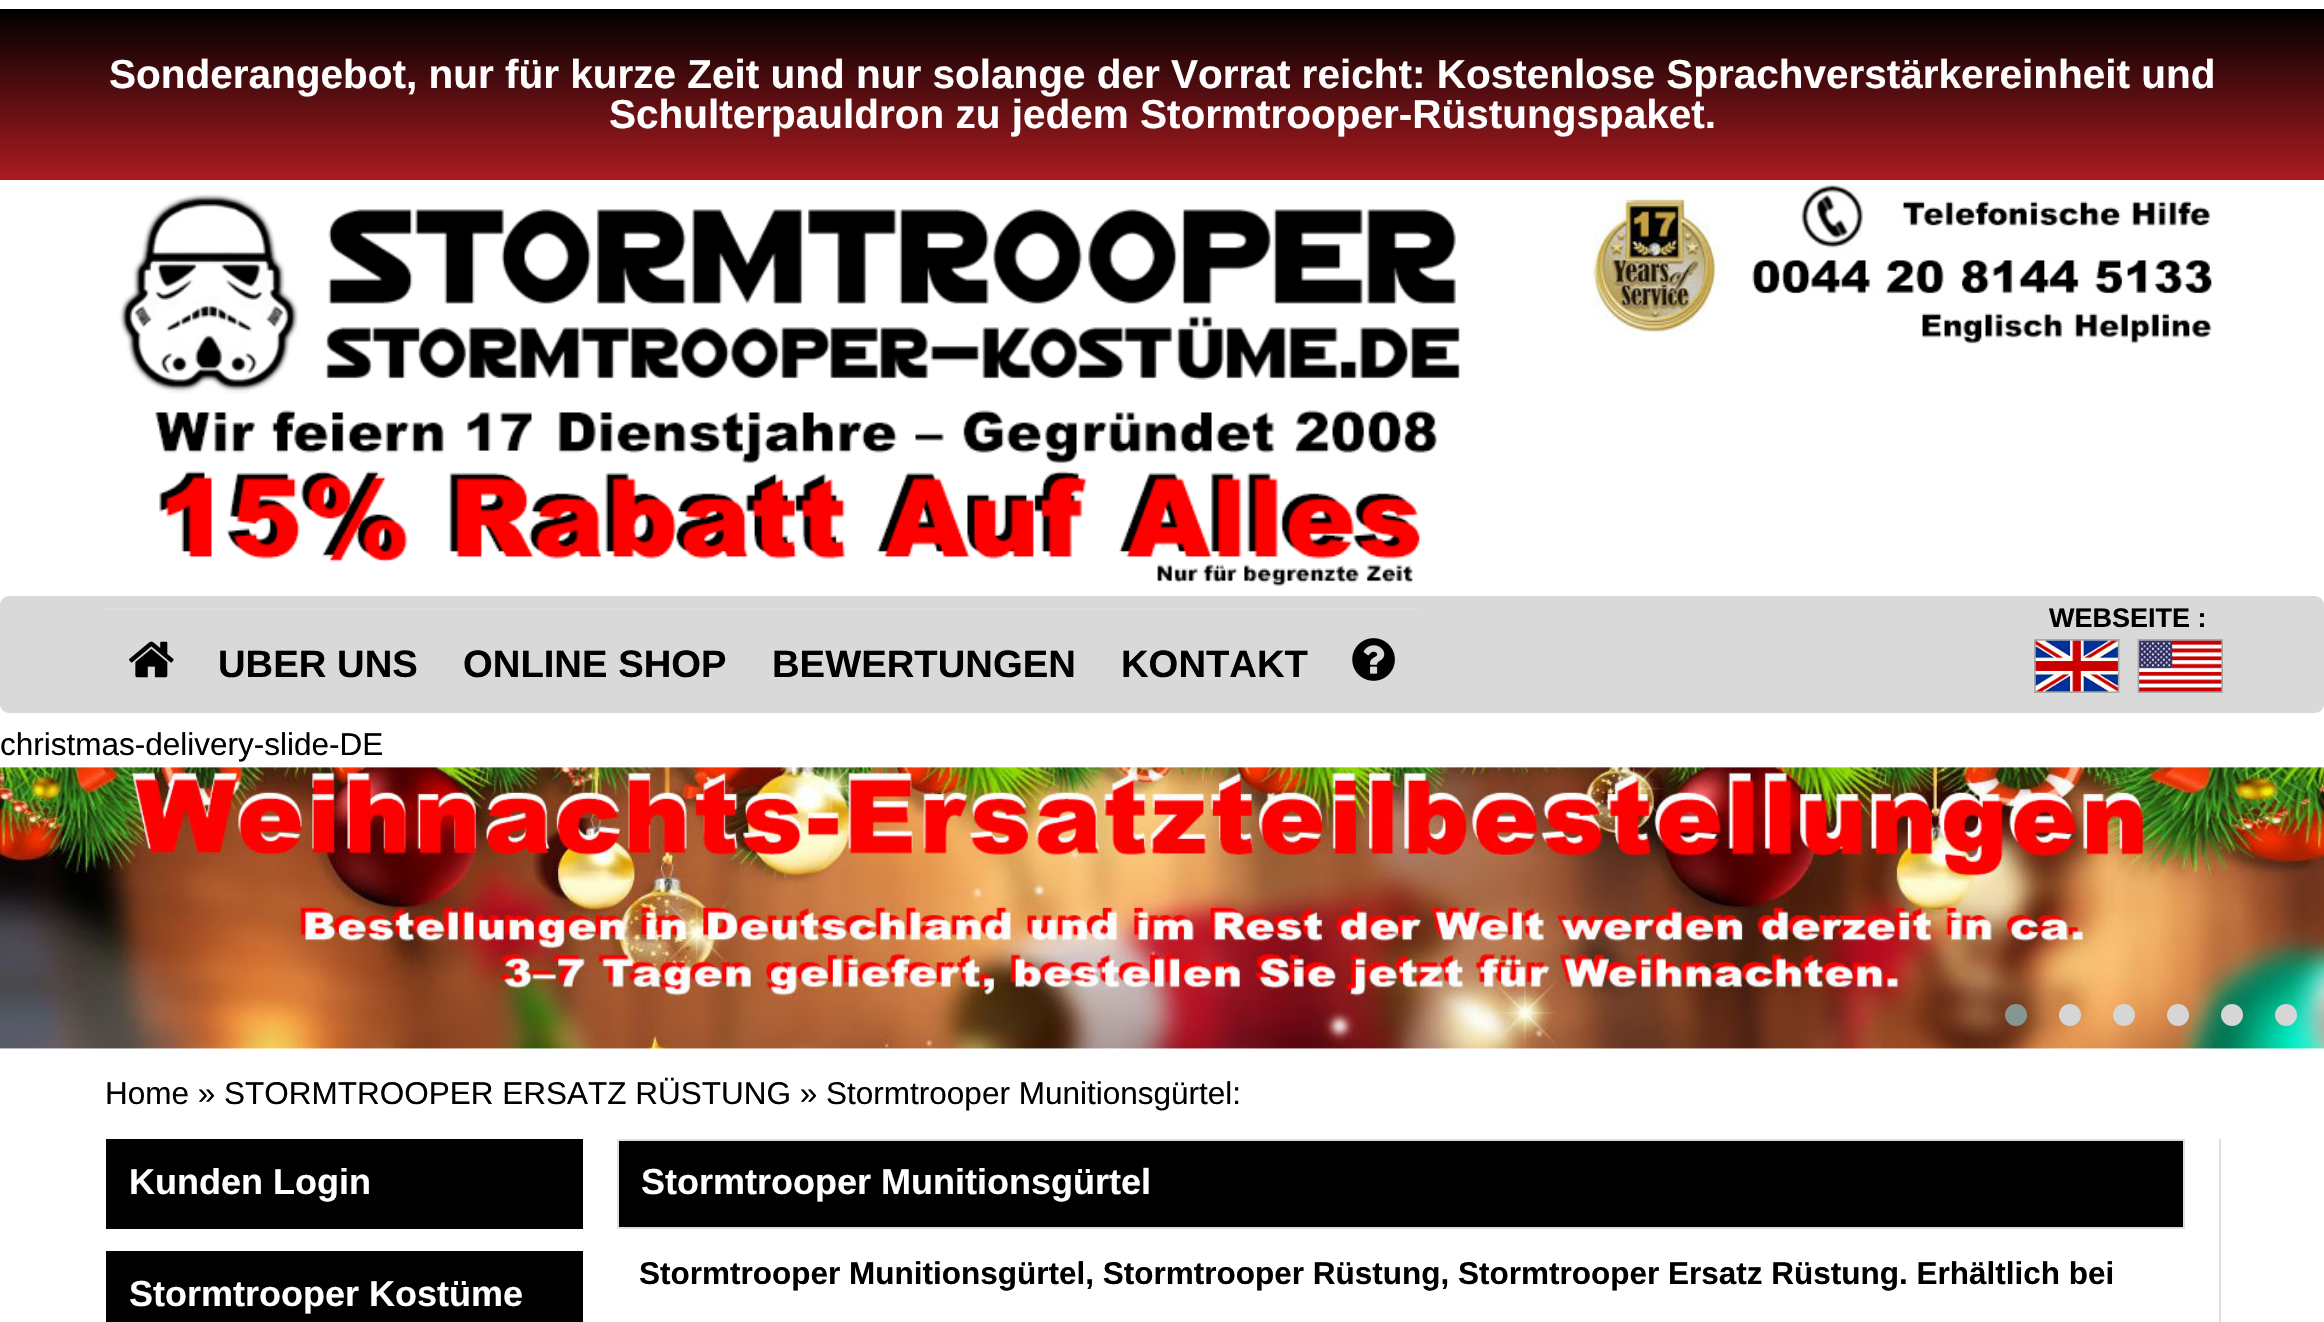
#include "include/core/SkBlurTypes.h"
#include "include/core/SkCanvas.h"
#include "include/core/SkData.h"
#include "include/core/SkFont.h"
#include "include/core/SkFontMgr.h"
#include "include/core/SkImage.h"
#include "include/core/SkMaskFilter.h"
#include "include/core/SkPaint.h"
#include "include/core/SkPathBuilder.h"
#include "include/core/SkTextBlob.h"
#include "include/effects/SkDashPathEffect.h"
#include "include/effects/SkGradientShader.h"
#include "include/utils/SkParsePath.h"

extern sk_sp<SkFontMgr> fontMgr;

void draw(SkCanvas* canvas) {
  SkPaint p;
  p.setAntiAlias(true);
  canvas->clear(SK_ColorWHITE);
  {
    const SkColor colors[] = {SK_ColorBLACK, SkColorSetRGB(172, 27, 33)};
    const float stops[] = {0, 1};
    const SkPoint ends[] = {{1162, 9}, {1162, 180}};
    p.setShader(SkGradientShader::MakeLinear(ends, colors, stops, 2, SkTileMode::kClamp));
    p.setAlpha(255);
  }
  canvas->drawRect(SkRect::MakeLTRB(0, 9, 2324, 180), p);
  canvas->drawImageRect(SkImages::DeferredFromEncodedData(SkData::MakeFromFileName("images/1.png")), SkRect::MakeLTRB(119, 194, 1460, 587), SkSamplingOptions());
  canvas->drawImageRect(SkImages::DeferredFromEncodedData(SkData::MakeFromFileName("images/2.png")), SkRect::MakeLTRB(1592, 185, 2212, 344), SkSamplingOptions());
  p.setShader(nullptr);
  p.setColor(SkColorSetRGB(217, 217, 217));
  canvas->drawRoundRect(SkRect::MakeLTRB(0, 596, 2324, 713), 9, 9, p);
  canvas->drawImageRect(SkImages::DeferredFromEncodedData(SkData::MakeFromFileName("images/3.png")), SkRect::MakeLTRB(2034, 639, 2120, 693), SkSamplingOptions());
  canvas->drawImageRect(SkImages::DeferredFromEncodedData(SkData::MakeFromFileName("images/4.png")), SkRect::MakeLTRB(2137, 639, 2223, 693), SkSamplingOptions());
  p.setColor(SkColorSetRGB(223, 223, 223));
  canvas->drawRect(SkRect::MakeLTRB(106, 608, 1418, 610), p);
  canvas->drawImageRect(SkImages::DeferredFromEncodedData(SkData::MakeFromFileName("images/5.png")), SkRect::MakeLTRB(129, 641, 174, 678), SkSamplingOptions());
  canvas->drawImageRect(SkImages::DeferredFromEncodedData(SkData::MakeFromFileName("images/6.png")), SkRect::MakeLTRB(1352, 638, 1395, 681), SkSamplingOptions());
  canvas->drawImageRect(SkImages::DeferredFromEncodedData(SkData::MakeFromFileName("images/7.png")), SkRect::MakeLTRB(0, 767, 2324, 1049), SkSamplingOptions());
  p.setColor(SkColorSetRGB(134, 151, 145));
  canvas->drawCircle(2016, 1015, 11, p);
  p.setColor(SkColorSetRGB(214, 214, 214));
  canvas->drawCircle(2070, 1015, 11, p);
  canvas->drawCircle(2124, 1015, 11, p);
  canvas->drawCircle(2178, 1015, 11, p);
  canvas->drawCircle(2232, 1015, 11, p);
  canvas->drawCircle(2286, 1015, 11, p);
  p.setColor(SK_ColorBLACK);
  canvas->drawRect(SkRect::MakeLTRB(106, 1139, 583, 1229), p);
  canvas->drawRect(SkRect::MakeLTRB(106, 1251, 583, 1322), p);
  p.setColor(SkColorSetRGB(223, 223, 223));
  canvas->drawRect(SkRect::MakeLTRB(2219, 1139, 2221, 1322), p);
  p.setColor(SK_ColorBLACK);
  canvas->drawRect(SkRect::MakeLTRB(618, 1140, 2184, 1228), p);
  p.setStyle(SkPaint::kStroke_Style);
  p.setStrokeWidth(2);
  p.setColor(SkColorSetRGB(223, 223, 223));
  canvas->drawRect(SkRect::MakeLTRB(618, 1140, 2184, 1228), p);
  SkFont font1(fontMgr->matchFamilyStyle("Liberation Sans", SkFontStyle::Bold()), 40.5f);
  font1.setSubpixel(true);
  p.setStyle(SkPaint::kFill_Style);
  p.setColor(SK_ColorWHITE);
  canvas->drawString("Sonderangebot, nur für kurze Zeit und nur solange der Vorrat reicht: Kostenlose Sprachverstärkereinheit und", 109, 88, font1, p);
  canvas->drawString("Schulterpauldron zu jedem Stormtrooper-Rüstungspaket.", 609, 128, font1, p);
  SkFont font2(fontMgr->matchFamilyStyle("Liberation Sans", SkFontStyle::Bold()), 27);
  font2.setSubpixel(true);
  p.setColor(SK_ColorBLACK);
  canvas->drawString("WEBSEITE :", 2049, 627, font2, p);
  SkFont font3(fontMgr->matchFamilyStyle("Liberation Sans", SkFontStyle::Bold()), 38.25f);
  font3.setSubpixel(true);
  canvas->drawString("UBER UNS", 218, 677, font3, p);
  canvas->drawString("ONLINE SHOP", 463, 677, font3, p);
  canvas->drawString("BEWERTUNGEN", 772, 677, font3, p);
  canvas->drawString("KONTAKT", 1121, 677, font3, p);
  SkFont font4(fontMgr->matchFamilyStyle("Liberation Sans", SkFontStyle::Normal()), 31.5f);
  font4.setSubpixel(true);
  canvas->drawString("christmas-delivery-slide-DE", 0, 755, font4, p);
  canvas->drawString("Home » STORMTROOPER ERSATZ RÜSTUNG » Stormtrooper Munitionsgürtel:", 105, 1104, font4, p);
  SkFont font5(fontMgr->matchFamilyStyle("Liberation Sans", SkFontStyle::Bold()), 36);
  font5.setSubpixel(true);
  p.setColor(SK_ColorWHITE);
  canvas->drawString("Kunden Login", 129, 1194, font5, p);
  canvas->drawString("Stormtrooper Kostüme", 129, 1306, font5, p);
  canvas->drawString("Stormtrooper Munitionsgürtel", 641, 1194, font5, p);
  SkFont font6(fontMgr->matchFamilyStyle("Liberation Sans", SkFontStyle::Bold()), 31.5f);
  font6.setSubpixel(true);
  p.setColor(SK_ColorBLACK);
  canvas->drawString("Stormtrooper Munitionsgürtel, Stormtrooper Rüstung, Stormtrooper Ersatz Rüstung. Erhältlich bei", 639, 1284, font6, p);
}
